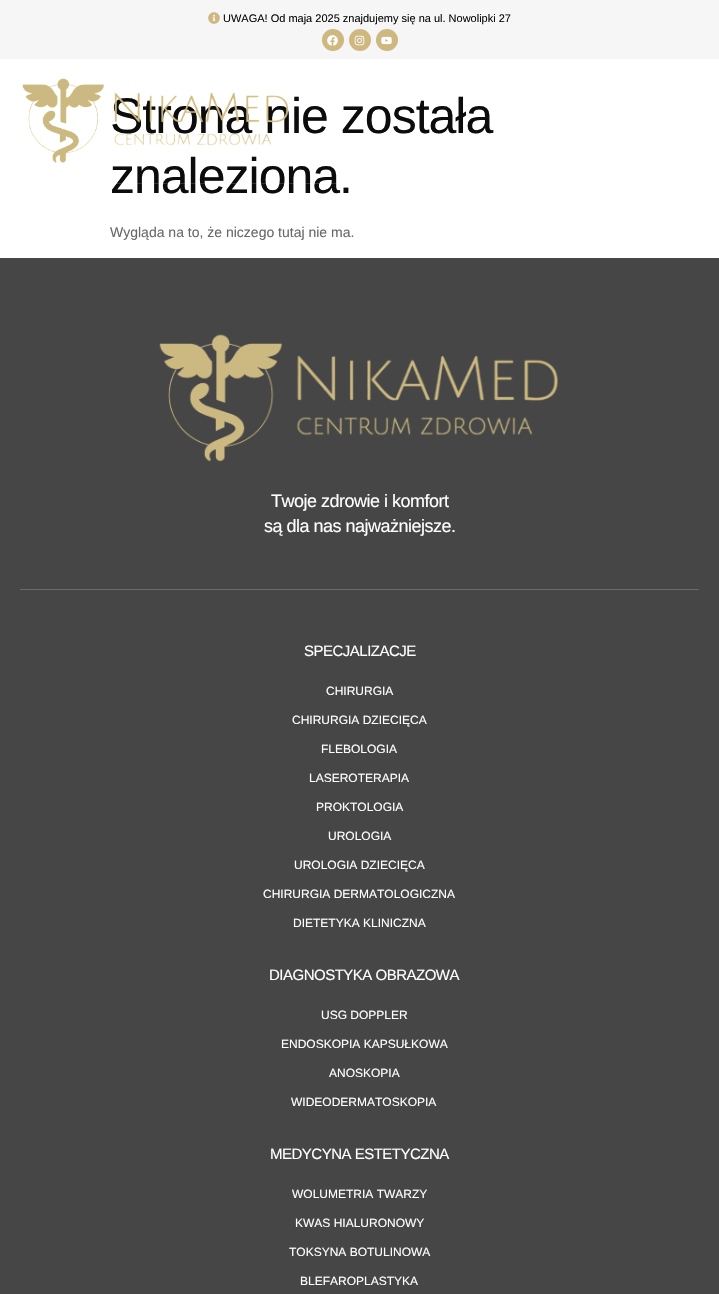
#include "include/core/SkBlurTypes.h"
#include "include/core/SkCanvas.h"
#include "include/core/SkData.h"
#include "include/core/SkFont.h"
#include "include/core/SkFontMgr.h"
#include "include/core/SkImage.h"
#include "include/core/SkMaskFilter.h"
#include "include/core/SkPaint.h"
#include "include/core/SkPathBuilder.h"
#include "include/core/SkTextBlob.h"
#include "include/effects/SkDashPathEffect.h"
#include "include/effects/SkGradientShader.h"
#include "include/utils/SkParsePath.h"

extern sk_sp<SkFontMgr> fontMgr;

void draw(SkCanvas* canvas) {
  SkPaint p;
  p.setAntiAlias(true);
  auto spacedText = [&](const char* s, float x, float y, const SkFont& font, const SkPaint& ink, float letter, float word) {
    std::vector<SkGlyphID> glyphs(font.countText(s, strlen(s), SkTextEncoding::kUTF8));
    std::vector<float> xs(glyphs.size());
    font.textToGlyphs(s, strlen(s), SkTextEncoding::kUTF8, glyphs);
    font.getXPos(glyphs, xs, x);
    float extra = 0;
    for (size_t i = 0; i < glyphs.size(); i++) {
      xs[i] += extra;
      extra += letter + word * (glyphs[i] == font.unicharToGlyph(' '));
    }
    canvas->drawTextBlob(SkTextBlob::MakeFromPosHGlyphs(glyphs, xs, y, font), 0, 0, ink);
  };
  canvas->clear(SK_ColorWHITE);
  p.setColor(SkColorSetRGB(246, 246, 246));
  canvas->drawRect(SkRect::MakeLTRB(0, 0, 719, 59), p);
  canvas->drawImageRect(SkImages::DeferredFromEncodedData(SkData::MakeFromFileName("images/1.png")), SkRect::MakeLTRB(208, 12, 220, 24), SkSamplingOptions());
  p.setColor(SkColorSetRGB(207, 184, 128));
  canvas->drawCircle(333, 40, 11, p);
  canvas->drawImageRect(SkImages::DeferredFromEncodedData(SkData::MakeFromFileName("images/2.png")), SkRect::MakeLTRB(327, 35, 338, 46), SkSamplingOptions());
  canvas->drawCircle(360, 40, 11, p);
  canvas->drawImageRect(SkImages::DeferredFromEncodedData(SkData::MakeFromFileName("images/3.png")), SkRect::MakeLTRB(354, 35, 365, 46), SkSamplingOptions());
  canvas->drawCircle(387, 40, 11, p);
  canvas->drawImageRect(SkImages::DeferredFromEncodedData(SkData::MakeFromFileName("images/4.png")), SkRect::MakeLTRB(381, 36, 392, 45), SkSamplingOptions());
  p.setColor(SkColorSetRGB(70, 70, 70));
  canvas->drawRect(SkRect::MakeLTRB(0, 258, 719, 1294), p);
  p.setColor(SkColorSetRGB(107, 107, 107));
  canvas->drawRect(SkRect::MakeLTRB(20, 589, 699, 590), p);
  canvas->drawImageRect(SkImages::DeferredFromEncodedData(SkData::MakeFromFileName("images/6.png")), SkRect::MakeLTRB(159, 334, 559, 462), SkSamplingOptions());
  SkFont font1(fontMgr->matchFamilyStyle("Liberation Sans", SkFontStyle::Normal()), 11);
  font1.setSubpixel(true);
  p.setColor(SkColorSetRGB(12, 12, 12));
  canvas->drawString("UWAGA! Od maja 2025 znajdujemy się na ul. Nowolipki 27", 223, 22, font1, p);
  SkFont font2(fontMgr->matchFamilyStyle("Liberation Sans", SkFontStyle::Normal()), 50);
  font2.setSubpixel(true);
  spacedText("Strona nie została", 110, 133, font2, p, -1, 0);
  spacedText("znaleziona.", 110, 193, font2, p, -1, 0);
  canvas->drawImageRect(SkImages::DeferredFromEncodedData(SkData::MakeFromFileName("images/5.png")), SkRect::MakeLTRB(22, 78, 289, 163), SkSamplingOptions());
  p.setColor(SkColorSetARGB(38, 254, 254, 254));
  canvas->drawRect(SkRect::MakeLTRB(116, 183, 336, 184), p);
  SkFont font3(fontMgr->matchFamilyStyle("Liberation Sans", SkFontStyle::Normal()), 14);
  font3.setSubpixel(true);
  p.setColor(SkColorSetRGB(105, 105, 105));
  canvas->drawString("Wygląda na to, że niczego tutaj nie ma.", 110, 237, font3, p);
  SkFont font4(fontMgr->matchFamilyStyle("Liberation Sans", SkFontStyle::Normal()), 18);
  font4.setSubpixel(true);
  p.setColor(SK_ColorWHITE);
  spacedText("Twoje zdrowie i komfort", 271, 507, font4, p, -0.5f, 0);
  spacedText("są dla nas najważniejsze.", 264, 532, font4, p, -0.5f, 0);
  SkFont font5(fontMgr->matchFamilyStyle("Liberation Sans", SkFontStyle::Normal()), 15);
  font5.setSubpixel(true);
  spacedText("SPECJALIZACJE", 304, 656, font5, p, -0.5f, 0);
  SkFont font6(fontMgr->matchFamilyStyle("Liberation Sans", SkFontStyle::Normal()), 12);
  font6.setSubpixel(true);
  canvas->drawString("CHIRURGIA", 326, 695, font6, p);
  canvas->drawString("CHIRURGIA DZIECIĘCA", 292, 724, font6, p);
  canvas->drawString("FLEBOLOGIA", 321, 753, font6, p);
  canvas->drawString("LASEROTERAPIA", 309, 782, font6, p);
  canvas->drawString("PROKTOLOGIA", 316, 811, font6, p);
  canvas->drawString("UROLOGIA", 328, 840, font6, p);
  canvas->drawString("UROLOGIA DZIECIĘCA", 294, 869, font6, p);
  canvas->drawString("CHIRURGIA DERMATOLOGICZNA", 263, 898, font6, p);
  canvas->drawString("DIETETYKA KLINICZNA", 293, 927, font6, p);
  spacedText("DIAGNOSTYKA OBRAZOWA", 269, 980, font5, p, -0.5f, 0);
  canvas->drawString("USG DOPPLER", 321, 1019, font6, p);
  canvas->drawString("ENDOSKOPIA KAPSUŁKOWA", 281, 1048, font6, p);
  canvas->drawString("ANOSKOPIA", 329, 1077, font6, p);
  canvas->drawString("WIDEODERMATOSKOPIA", 291, 1106, font6, p);
  spacedText("MEDYCYNA ESTETYCZNA", 270, 1159, font5, p, -0.5f, 0);
  canvas->drawString("WOLUMETRIA TWARZY", 292, 1198, font6, p);
  canvas->drawString("KWAS HIALURONOWY", 295, 1227, font6, p);
  canvas->drawString("TOKSYNA BOTULINOWA", 289, 1256, font6, p);
  canvas->drawString("BLEFAROPLASTYKA", 300, 1285, font6, p);
}
